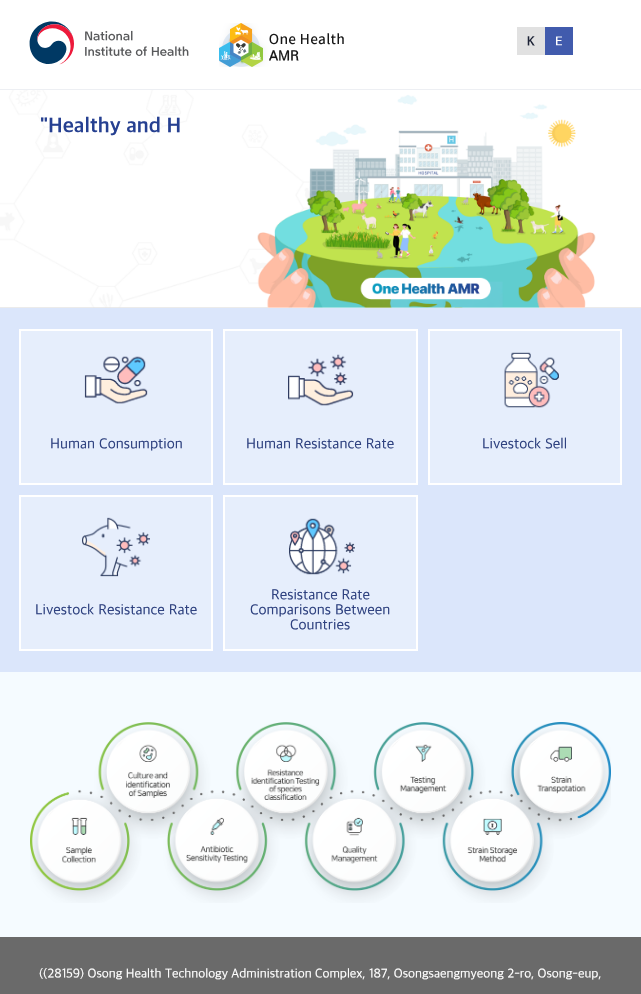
#include "include/core/SkBlurTypes.h"
#include "include/core/SkCanvas.h"
#include "include/core/SkData.h"
#include "include/core/SkFont.h"
#include "include/core/SkFontMgr.h"
#include "include/core/SkImage.h"
#include "include/core/SkMaskFilter.h"
#include "include/core/SkPaint.h"
#include "include/core/SkPathBuilder.h"
#include "include/core/SkTextBlob.h"
#include "include/effects/SkDashPathEffect.h"
#include "include/effects/SkGradientShader.h"
#include "include/utils/SkParsePath.h"

extern sk_sp<SkFontMgr> fontMgr;

void draw(SkCanvas* canvas) {
  SkPaint p;
  p.setAntiAlias(true);
  canvas->clear(SK_ColorWHITE);
  p.setColor(SkColorSetRGB(237, 239, 243));
  canvas->drawRect(SkRect::MakeLTRB(0, 89, 641, 90), p);
  canvas->drawImageRect(SkImages::DeferredFromEncodedData(SkData::MakeFromFileName("images/1.png")), SkRect::MakeLTRB(29, 21, 189, 65), SkSamplingOptions());
  canvas->drawImageRect(SkImages::DeferredFromEncodedData(SkData::MakeFromFileName("images/2.png")), SkRect::MakeLTRB(219, 23, 344, 67), SkSamplingOptions());
  canvas->drawImageRect(SkImages::DeferredFromEncodedData(SkData::MakeFromFileName("images/3.png")), SkRect::MakeLTRB(517, 27, 573, 55), SkSamplingOptions());
  canvas->drawImageRect(SkImages::DeferredFromEncodedData(SkData::MakeFromFileName("images/4.png")), SkRect::MakeLTRB(0, 90, 641, 308), SkSamplingOptions());
  p.setColor(SkColorSetRGB(219, 230, 251));
  canvas->drawRect(SkRect::MakeLTRB(0, 308, 641, 672), p);
  p.setColor(SkColorSetRGB(230, 238, 252));
  canvas->drawRect(SkRect::MakeLTRB(20, 330, 212, 484), p);
  p.setStyle(SkPaint::kStroke_Style);
  p.setStrokeWidth(2);
  p.setColor(SK_ColorWHITE);
  canvas->drawRect(SkRect::MakeLTRB(20, 330, 212, 484), p);
  canvas->drawImageRect(SkImages::DeferredFromEncodedData(SkData::MakeFromFileName("images/5.png")), SkRect::MakeLTRB(84, 356, 148, 404), SkSamplingOptions());
  p.setStyle(SkPaint::kFill_Style);
  p.setColor(SkColorSetRGB(230, 238, 252));
  canvas->drawRect(SkRect::MakeLTRB(224, 330, 417, 484), p);
  p.setStyle(SkPaint::kStroke_Style);
  p.setColor(SK_ColorWHITE);
  canvas->drawRect(SkRect::MakeLTRB(224, 330, 417, 484), p);
  canvas->drawImageRect(SkImages::DeferredFromEncodedData(SkData::MakeFromFileName("images/6.png")), SkRect::MakeLTRB(288, 354, 354, 406), SkSamplingOptions());
  p.setStyle(SkPaint::kFill_Style);
  p.setColor(SkColorSetRGB(230, 238, 252));
  canvas->drawRect(SkRect::MakeLTRB(429, 330, 621, 484), p);
  p.setStyle(SkPaint::kStroke_Style);
  p.setColor(SK_ColorWHITE);
  canvas->drawRect(SkRect::MakeLTRB(429, 330, 621, 484), p);
  canvas->drawImageRect(SkImages::DeferredFromEncodedData(SkData::MakeFromFileName("images/7.png")), SkRect::MakeLTRB(504, 352, 559, 408), SkSamplingOptions());
  p.setStyle(SkPaint::kFill_Style);
  p.setColor(SkColorSetRGB(230, 238, 252));
  canvas->drawRect(SkRect::MakeLTRB(20, 496, 212, 650), p);
  p.setStyle(SkPaint::kStroke_Style);
  p.setColor(SK_ColorWHITE);
  canvas->drawRect(SkRect::MakeLTRB(20, 496, 212, 650), p);
  canvas->drawImageRect(SkImages::DeferredFromEncodedData(SkData::MakeFromFileName("images/8.png")), SkRect::MakeLTRB(82, 517, 150, 577), SkSamplingOptions());
  p.setStyle(SkPaint::kFill_Style);
  p.setColor(SkColorSetRGB(230, 238, 252));
  canvas->drawRect(SkRect::MakeLTRB(224, 496, 417, 650), p);
  p.setStyle(SkPaint::kStroke_Style);
  p.setColor(SK_ColorWHITE);
  canvas->drawRect(SkRect::MakeLTRB(224, 496, 417, 650), p);
  canvas->drawImageRect(SkImages::DeferredFromEncodedData(SkData::MakeFromFileName("images/9.png")), SkRect::MakeLTRB(289, 518, 355, 575), SkSamplingOptions());
  p.setStyle(SkPaint::kFill_Style);
  p.setColor(SkColorSetRGB(245, 251, 255));
  canvas->drawRect(SkRect::MakeLTRB(0, 672, 641, 937), p);
  canvas->drawImageRect(SkImages::DeferredFromEncodedData(SkData::MakeFromFileName("images/10.png")), SkRect::MakeLTRB(30, 722, 611, 903), SkSamplingOptions());
  p.setColor(SkColorSetRGB(106, 106, 106));
  canvas->drawRect(SkRect::MakeLTRB(0, 937, 641, 994), p);
  SkFont font1(fontMgr->matchFamilyStyle("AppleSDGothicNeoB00", SkFontStyle::Normal()), 21);
  font1.setSubpixel(true);
  p.setColor(SkColorSetRGB(38, 64, 145));
  canvas->drawString("\"Healthy and H", 40, 133, font1, p);
  SkFont font2(fontMgr->matchFamilyStyle("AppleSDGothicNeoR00", SkFontStyle::Normal()), 15);
  font2.setSubpixel(true);
  p.setColor(SkColorSetRGB(47, 66, 128));
  canvas->drawString("Human Consumption", 50, 449, font2, p);
  canvas->drawString("Human Resistance Rate", 246, 449, font2, p);
  canvas->drawString("Livestock Sell", 482, 449, font2, p);
  canvas->drawString("Livestock Resistance Rate", 35, 615, font2, p);
  canvas->drawString("Resistance Rate", 271, 600, font2, p);
  canvas->drawString("Comparisons Between", 250, 615, font2, p);
  canvas->drawString("Countries", 290, 630, font2, p);
  SkFont font3(fontMgr->matchFamilyStyle("AppleSDGothicNeoR00", SkFontStyle::Normal()), 13);
  font3.setSubpixel(true);
  p.setColor(SK_ColorWHITE);
  canvas->drawString("((28159) Osong Health Technology Administration Complex, 187, Osongsaengmyeong 2-ro, Osong-eup,", 39, 978, font3, p);
}
